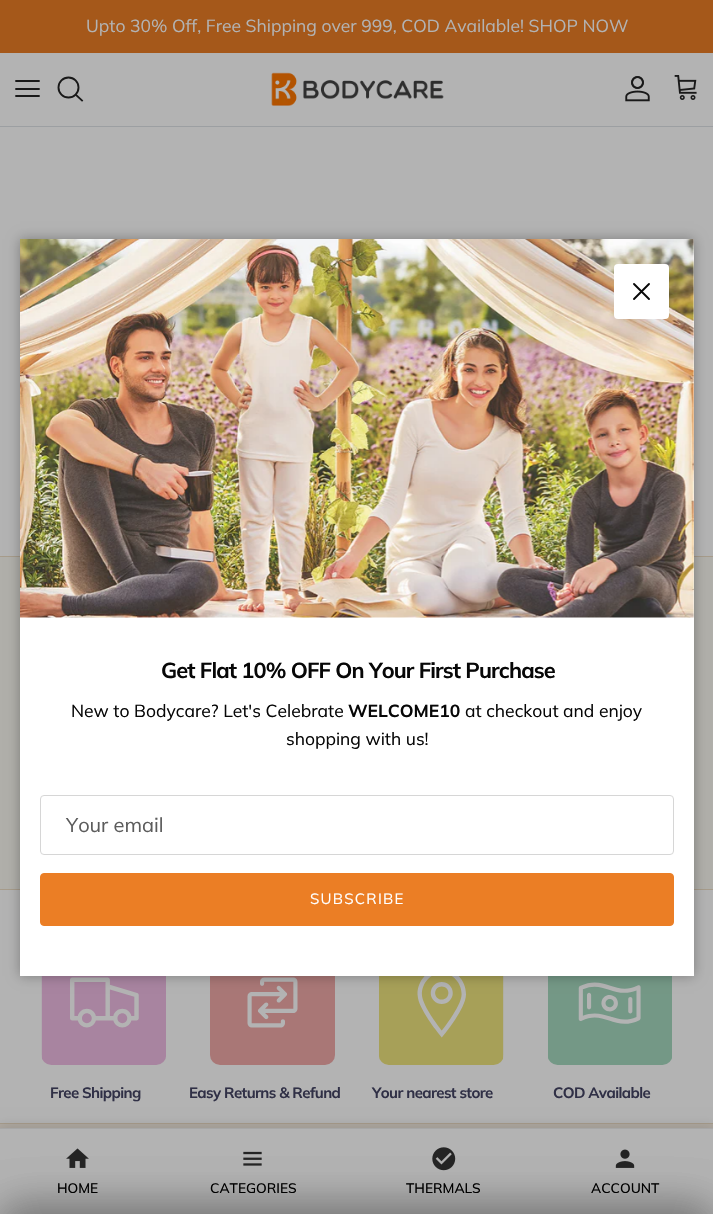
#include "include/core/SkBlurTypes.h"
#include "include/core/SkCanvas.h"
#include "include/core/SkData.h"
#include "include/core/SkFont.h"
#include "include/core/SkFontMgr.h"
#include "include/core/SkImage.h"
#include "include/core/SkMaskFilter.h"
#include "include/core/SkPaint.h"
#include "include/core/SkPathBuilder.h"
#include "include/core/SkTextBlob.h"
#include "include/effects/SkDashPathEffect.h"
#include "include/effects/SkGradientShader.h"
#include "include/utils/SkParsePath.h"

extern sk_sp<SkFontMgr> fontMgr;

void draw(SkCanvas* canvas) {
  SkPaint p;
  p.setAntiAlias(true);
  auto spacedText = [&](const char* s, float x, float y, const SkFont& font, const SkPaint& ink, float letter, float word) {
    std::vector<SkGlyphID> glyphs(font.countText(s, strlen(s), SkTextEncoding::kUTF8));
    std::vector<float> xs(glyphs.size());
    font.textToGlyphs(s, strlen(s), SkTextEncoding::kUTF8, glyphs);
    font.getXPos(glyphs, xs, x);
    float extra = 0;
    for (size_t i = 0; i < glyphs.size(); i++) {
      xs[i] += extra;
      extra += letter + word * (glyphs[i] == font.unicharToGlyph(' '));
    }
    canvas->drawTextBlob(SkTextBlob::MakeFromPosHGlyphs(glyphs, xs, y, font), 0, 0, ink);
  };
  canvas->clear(SkColorSetRGB(179, 179, 179));
  p.setColor(SkColorSetRGB(165, 88, 26));
  canvas->drawRect(SkRect::MakeLTRB(0, 0, 713, 53), p);
  p.setColor(SkColorSetRGB(156, 159, 162));
  canvas->drawRect(SkRect::MakeLTRB(0, 126, 713, 127), p);
  p.setStyle(SkPaint::kStroke_Style);
  p.setStrokeWidth(1.9f);
  p.setStrokeCap(SkPaint::kRound_Cap);
  p.setStrokeJoin(SkPaint::kRound_Join);
  p.setColor(SkColorSetRGB(25, 25, 25));
  canvas->drawPath(SkPathBuilder().moveTo(16, 89).lineTo(39, 89).moveTo(16, 81).lineTo(39, 81).moveTo(16, 96).lineTo(39, 96).detach(), p);
  p.setStrokeCap(SkPaint::kButt_Cap);
  p.setStrokeJoin(SkPaint::kMiter_Join);
  canvas->drawCircle(68.5f, 87.5f, 10, p);
  p.setStrokeCap(SkPaint::kSquare_Cap);
  canvas->drawPath(SkPathBuilder().moveTo(76, 95).lineTo(82, 100.5f).detach(), p);
  canvas->drawImageRect(SkImages::DeferredFromEncodedData(SkData::MakeFromFileName("images/1.png")), SkRect::MakeLTRB(271, 72, 444, 106), SkSamplingOptions());
  canvas->drawImageRect(SkImages::DeferredFromEncodedData(SkData::MakeFromFileName("images/2.png")), SkRect::MakeLTRB(625, 76, 650, 102), SkSamplingOptions());
  canvas->drawImageRect(SkImages::DeferredFromEncodedData(SkData::MakeFromFileName("images/3.png")), SkRect::MakeLTRB(674, 75, 697, 100), SkSamplingOptions());
  p.setStyle(SkPaint::kFill_Style);
  p.setColor(SkColorSetRGB(176, 175, 170));
  canvas->drawRect(SkRect::MakeLTRB(0, 557, 713, 889), p);
  p.setColor(SkColorSetRGB(167, 156, 139));
  canvas->drawRect(SkRect::MakeLTRB(0, 556, 713, 557), p);
  canvas->drawRect(SkRect::MakeLTRB(0, 889, 713, 890), p);
  canvas->drawImageRect(SkImages::DeferredFromEncodedData(SkData::MakeFromFileName("images/5.png")), SkRect::MakeLTRB(41, 976, 166, 1065), SkSamplingOptions());
  canvas->drawImageRect(SkImages::DeferredFromEncodedData(SkData::MakeFromFileName("images/6.png")), SkRect::MakeLTRB(210, 976, 335, 1065), SkSamplingOptions());
  canvas->drawImageRect(SkImages::DeferredFromEncodedData(SkData::MakeFromFileName("images/7.png")), SkRect::MakeLTRB(379, 976, 504, 1065), SkSamplingOptions());
  canvas->drawImageRect(SkImages::DeferredFromEncodedData(SkData::MakeFromFileName("images/8.png")), SkRect::MakeLTRB(548, 976, 672, 1065), SkSamplingOptions());
  p.setColor(SkColorSetARGB(77, 0, 0, 0));
  p.setMaskFilter(SkMaskFilter::MakeBlur(kNormal_SkBlurStyle, 6));
  canvas->drawRect(SkRect::MakeLTRB(20, 239, 694, 976), p);
  p.setMaskFilter(nullptr);
  p.setColor(SK_ColorWHITE);
  canvas->drawRect(SkRect::MakeLTRB(20, 239, 694, 976), p);
  canvas->drawImageRect(SkImages::DeferredFromEncodedData(SkData::MakeFromFileName("images/4.png")), SkRect::MakeLTRB(20, 239, 694, 618), SkSamplingOptions());
  canvas->drawRoundRect(SkRect::MakeLTRB(614, 264, 669, 319), 4, 4, p);
  p.setStyle(SkPaint::kStroke_Style);
  p.setStrokeCap(SkPaint::kRound_Cap);
  p.setStrokeJoin(SkPaint::kRound_Join);
  p.setColor(SkColorSetRGB(7, 7, 7));
  canvas->drawPath(SkPathBuilder().moveTo(649, 284).lineTo(634, 299).moveTo(634, 284).lineTo(649, 299).detach(), p);
  p.setStrokeWidth(1);
  p.setStrokeCap(SkPaint::kButt_Cap);
  p.setStrokeJoin(SkPaint::kMiter_Join);
  p.setColor(SkColorSetRGB(214, 214, 214));
  canvas->drawRoundRect(SkRect::MakeLTRB(40.5f, 795.5f, 673.5f, 854.5f), 3.5f, 3.5f, p);
  p.setStyle(SkPaint::kFill_Style);
  p.setColor(SkColorSetRGB(235, 126, 37));
  canvas->drawRoundRect(SkRect::MakeLTRB(40.5f, 873.5f, 673.5f, 925.5f), 3.5f, 3.5f, p);
  p.setStyle(SkPaint::kStroke_Style);
  canvas->drawRoundRect(SkRect::MakeLTRB(40.5f, 873.5f, 673.5f, 925.5f), 3.5f, 3.5f, p);
  p.setStyle(SkPaint::kFill_Style);
  p.setColor(SkColorSetRGB(175, 169, 161));
  canvas->drawRect(SkRect::MakeLTRB(0, 1124, 713, 1128), p);
  p.setColor(SkColorSetRGB(167, 156, 139));
  canvas->drawRect(SkRect::MakeLTRB(0, 1123, 713, 1124), p);
  p.setColor(SkColorSetARGB(26, 0, 0, 0));
  p.setMaskFilter(SkMaskFilter::MakeBlur(kNormal_SkBlurStyle, 6));
  canvas->drawRect(SkRect::MakeLTRB(0, 1125, 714, 1213), p);
  p.setMaskFilter(nullptr);
  p.setColor(SkColorSetRGB(179, 179, 179));
  canvas->drawRect(SkRect::MakeLTRB(0, 1129, 713, 1214), p);
  canvas->drawImageRect(SkImages::DeferredFromEncodedData(SkData::MakeFromFileName("images/9.png")), SkRect::MakeLTRB(66, 1148, 89, 1168), SkSamplingOptions());
  canvas->drawImageRect(SkImages::DeferredFromEncodedData(SkData::MakeFromFileName("images/10.png")), SkRect::MakeLTRB(243, 1151, 262, 1166), SkSamplingOptions());
  canvas->drawImageRect(SkImages::DeferredFromEncodedData(SkData::MakeFromFileName("images/11.png")), SkRect::MakeLTRB(432, 1147, 456, 1171), SkSamplingOptions());
  canvas->drawImageRect(SkImages::DeferredFromEncodedData(SkData::MakeFromFileName("images/12.png")), SkRect::MakeLTRB(615, 1149, 635, 1168), SkSamplingOptions());
  p.setColor(SkColorSetARGB(51, 0, 0, 0));
  p.setMaskFilter(SkMaskFilter::MakeBlur(kNormal_SkBlurStyle, 20));
  canvas->drawRoundRect(SkRect::MakeLTRB(0, 1205, 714, 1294), 20, 20, p);
  p.setMaskFilter(nullptr);
  p.setMaskFilter(SkMaskFilter::MakeBlur(kNormal_SkBlurStyle, 20));
  canvas->drawRoundRect(SkRect::MakeLTRB(0, 1205, 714, 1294), 20, 20, p);
  p.setMaskFilter(nullptr);
  p.setColor(SkColorSetRGB(167, 167, 167));
  canvas->drawRect(SkRect::MakeLTRB(0, 1128, 713, 1129), p);
  SkFont font1(fontMgr->matchFamilyStyle("Muli", SkFontStyle::Normal()), 17.5f);
  font1.setSubpixel(true);
  p.setColor(SkColorSetRGB(179, 179, 179));
  canvas->drawString("Upto 30% Off, Free Shipping over 999, COD Available! SHOP NOW", 86, 32, font1, p);
  SkFont font2(fontMgr->matchFamilyStyle("Muli", SkFontStyle::Bold()), 21.75f);
  font2.setSubpixel(true);
  p.setColor(SkColorSetRGB(7, 7, 7));
  spacedText("Get Flat 10% OFF On Your First Purchase", 161, 678, font2, p, -0.85f, 0);
  canvas->drawString("New to Bodycare? Let's Celebrate", 71, 717, font1, p);
  SkFont font3(fontMgr->matchFamilyStyle("Muli", SkFontStyle::Bold()), 17.5f);
  font3.setSubpixel(true);
  canvas->drawString("WELCOME10", 348, 717, font3, p);
  canvas->drawString("at checkout and enjoy", 465, 717, font1, p);
  canvas->drawString("shopping with us!", 286, 745, font1, p);
  SkFont font4(fontMgr->matchFamilyStyle("Muli", SkFontStyle::Normal()), 20);
  font4.setSubpixel(true);
  p.setColor(SkColorSetRGB(92, 92, 92));
  canvas->drawString("Your email", 66, 832, font4, p);
  SkFont font5(fontMgr->matchFamilyStyle("Muli", SkFontStyle::Normal()), 15);
  font5.setSubpixel(true);
  p.setColor(SK_ColorWHITE);
  spacedText("SUBSCRIBE", 310, 904, font5, p, 1.25f, 0);
  SkFont font6(fontMgr->matchFamilyStyle("Muli", SkFontStyle::Bold()), 15);
  font6.setSubpixel(true);
  p.setColor(SkColorSetRGB(48, 48, 70));
  spacedText("Free Shipping", 50, 1098, font6, p, -0.6f, 0);
  spacedText("Easy Returns & Refund", 189, 1098, font6, p, -0.6f, 0);
  spacedText("Your nearest store", 372, 1098, font6, p, -0.6f, 0);
  spacedText("COD Available", 553, 1098, font6, p, -0.6f, 0);
  SkFont font7(fontMgr->matchFamilyStyle("Muli", SkFontStyle(500, SkFontStyle::kNormal_Width, SkFontStyle::kUpright_Slant)), 13.75f);
  font7.setSubpixel(true);
  p.setColor(SK_ColorBLACK);
  canvas->drawString("HOME", 57, 1193, font7, p);
  canvas->drawString("CATEGORIES", 210, 1193, font7, p);
  canvas->drawString("THERMALS", 406, 1193, font7, p);
  canvas->drawString("ACCOUNT", 591, 1193, font7, p);
}
